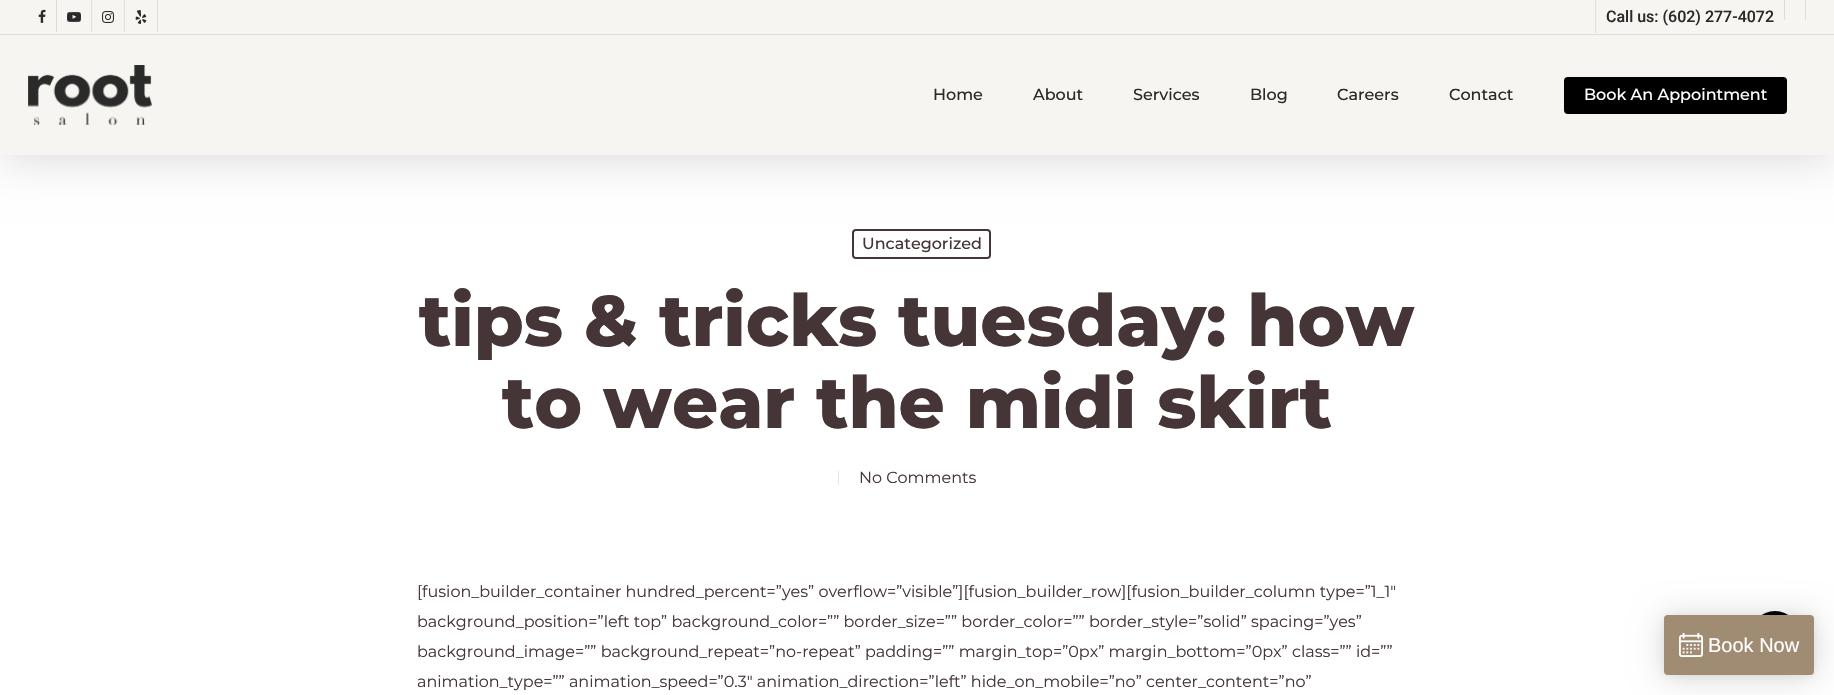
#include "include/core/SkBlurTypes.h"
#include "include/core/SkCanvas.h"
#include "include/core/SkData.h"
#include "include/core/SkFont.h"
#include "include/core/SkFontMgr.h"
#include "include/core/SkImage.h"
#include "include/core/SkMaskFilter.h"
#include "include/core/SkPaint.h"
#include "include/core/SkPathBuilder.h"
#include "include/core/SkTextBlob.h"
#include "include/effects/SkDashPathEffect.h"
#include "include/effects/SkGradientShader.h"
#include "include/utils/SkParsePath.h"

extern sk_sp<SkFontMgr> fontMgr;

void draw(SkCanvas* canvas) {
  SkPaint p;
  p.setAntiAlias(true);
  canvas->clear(SK_ColorWHITE);
  p.setColor(SkColorSetARGB(38, 0, 0, 0));
  p.setMaskFilter(SkMaskFilter::MakeBlur(kNormal_SkBlurStyle, 22.5f));
  canvas->drawRect(SkRect::MakeLTRB(0, 3, 1834, 158), p);
  p.setMaskFilter(nullptr);
  p.setColor(SkColorSetRGB(247, 245, 241));
  canvas->drawRect(SkRect::MakeLTRB(0, 0, 1834, 155), p);
  p.setColor(SkColorSetRGB(222, 221, 217));
  canvas->drawRect(SkRect::MakeLTRB(0, 34, 1834, 35), p);
  canvas->drawImageRect(SkImages::DeferredFromEncodedData(SkData::MakeFromFileName("images/1.png")), SkRect::MakeLTRB(38, 9, 46, 23), SkSamplingOptions());
  canvas->drawRect(SkRect::MakeLTRB(56, 0, 57, 32), p);
  canvas->drawImageRect(SkImages::DeferredFromEncodedData(SkData::MakeFromFileName("images/2.png")), SkRect::MakeLTRB(67, 12, 81, 22), SkSamplingOptions());
  canvas->drawRect(SkRect::MakeLTRB(91, 0, 92, 32), p);
  canvas->drawImageRect(SkImages::DeferredFromEncodedData(SkData::MakeFromFileName("images/3.png")), SkRect::MakeLTRB(102, 11, 114, 23), SkSamplingOptions());
  canvas->drawRect(SkRect::MakeLTRB(157, 0, 158, 32), p);
  canvas->drawRect(SkRect::MakeLTRB(124, 0, 125, 32), p);
  canvas->drawImageRect(SkImages::DeferredFromEncodedData(SkData::MakeFromFileName("images/4.png")), SkRect::MakeLTRB(135, 10, 147, 24), SkSamplingOptions());
  canvas->drawRect(SkRect::MakeLTRB(1595, 0, 1596, 33), p);
  canvas->drawRect(SkRect::MakeLTRB(1805, 0, 1806, 20), p);
  canvas->drawRect(SkRect::MakeLTRB(1784, 0, 1785, 20), p);
  canvas->drawImageRect(SkImages::DeferredFromEncodedData(SkData::MakeFromFileName("images/5.png")), SkRect::MakeLTRB(28, 65, 152, 125), SkSamplingOptions());
  p.setColor(SK_ColorBLACK);
  canvas->drawRoundRect(SkRect::MakeLTRB(1564, 77, 1787, 114), 4, 4, p);
  p.setStyle(SkPaint::kStroke_Style);
  p.setStrokeWidth(2);
  p.setColor(SkColorSetRGB(69, 53, 54));
  canvas->drawRoundRect(SkRect::MakeLTRB(853, 230, 990, 258), 3, 3, p);
  p.setStyle(SkPaint::kFill_Style);
  p.setColor(SkColorSetRGB(230, 230, 230));
  canvas->drawRect(SkRect::MakeLTRB(838, 471, 839, 485), p);
  p.setColor(SK_ColorBLACK);
  canvas->drawCircle(1775, 636, 25, p);
  p.setColor(SkColorSetARGB(41, 0, 0, 0));
  p.setMaskFilter(SkMaskFilter::MakeBlur(kNormal_SkBlurStyle, 16));
  canvas->drawRoundRect(SkRect::MakeLTRB(1664, 617, 1814, 677), 4, 4, p);
  p.setMaskFilter(nullptr);
  p.setColor(SkColorSetARGB(15, 0, 0, 0));
  p.setMaskFilter(SkMaskFilter::MakeBlur(kNormal_SkBlurStyle, 3));
  canvas->drawRoundRect(SkRect::MakeLTRB(1664, 616, 1814, 676), 4, 4, p);
  p.setMaskFilter(nullptr);
  p.setColor(SkColorSetRGB(160, 139, 115));
  canvas->drawRoundRect(SkRect::MakeLTRB(1664, 615, 1814, 675), 4, 4, p);
  canvas->drawImageRect(SkImages::DeferredFromEncodedData(SkData::MakeFromFileName("images/6.png")), SkRect::MakeLTRB(1679, 633, 1703, 657), SkSamplingOptions());
  SkFont font1(fontMgr->matchFamilyStyle("Roboto", SkFontStyle(500, SkFontStyle::kNormal_Width, SkFontStyle::kUpright_Slant)), 16);
  font1.setSubpixel(true);
  p.setColor(SkColorSetRGB(42, 42, 42));
  canvas->drawString("Call us: (602) 277-4072", 1606, 22, font1, p);
  SkFont font2(fontMgr->matchFamilyStyle("Montserrat", SkFontStyle(500, SkFontStyle::kNormal_Width, SkFontStyle::kUpright_Slant)), 16);
  font2.setSubpixel(true);
  canvas->drawString("Home", 933, 100, font2, p);
  canvas->drawString("About", 1033, 100, font2, p);
  canvas->drawString("Services", 1133, 100, font2, p);
  canvas->drawString("Blog", 1250, 100, font2, p);
  canvas->drawString("Careers", 1337, 100, font2, p);
  canvas->drawString("Contact", 1449, 100, font2, p);
  p.setColor(SK_ColorWHITE);
  canvas->drawString("Book An Appointment", 1584, 100, font2, p);
  p.setColor(SkColorSetRGB(69, 53, 54));
  canvas->drawString("Uncategorized", 862, 249, font2, p);
  SkFont font3(fontMgr->matchFamilyStyle("Montserrat", SkFontStyle(800, SkFontStyle::kNormal_Width, SkFontStyle::kUpright_Slant)), 72);
  font3.setSubpixel(true);
  canvas->drawString("tips & tricks tuesday: how", 419, 346, font3, p);
  canvas->drawString("to wear the midi skirt", 502, 428, font3, p);
  SkFont font4(fontMgr->matchFamilyStyle("Montserrat", SkFontStyle::Normal()), 16);
  font4.setSubpixel(true);
  canvas->drawString("No Comments", 859, 483, font4, p);
  canvas->drawString("[fusion_builder_container hundred_percent=”yes” overflow=”visible”][fusion_builder_row][fusion_builder_column type=”1_1″", 417, 597, font4, p);
  canvas->drawString("background_position=”left top” background_color=”” border_size=”” border_color=”” border_style=”solid” spacing=”yes”", 417, 627, font4, p);
  canvas->drawString("background_image=”” background_repeat=”no-repeat” padding=”” margin_top=”0px” margin_bottom=”0px” class=”” id=””", 417, 657, font4, p);
  canvas->drawString("animation_type=”” animation_speed=”0.3″ animation_direction=”left” hide_on_mobile=”no” center_content=”no”", 417, 687, font4, p);
  SkFont font5(fontMgr->matchFamilyStyle("Liberation Sans", SkFontStyle::Normal()), 20);
  font5.setSubpixel(true);
  p.setColor(SK_ColorWHITE);
  canvas->drawString("Book Now", 1708, 652, font5, p);
}
